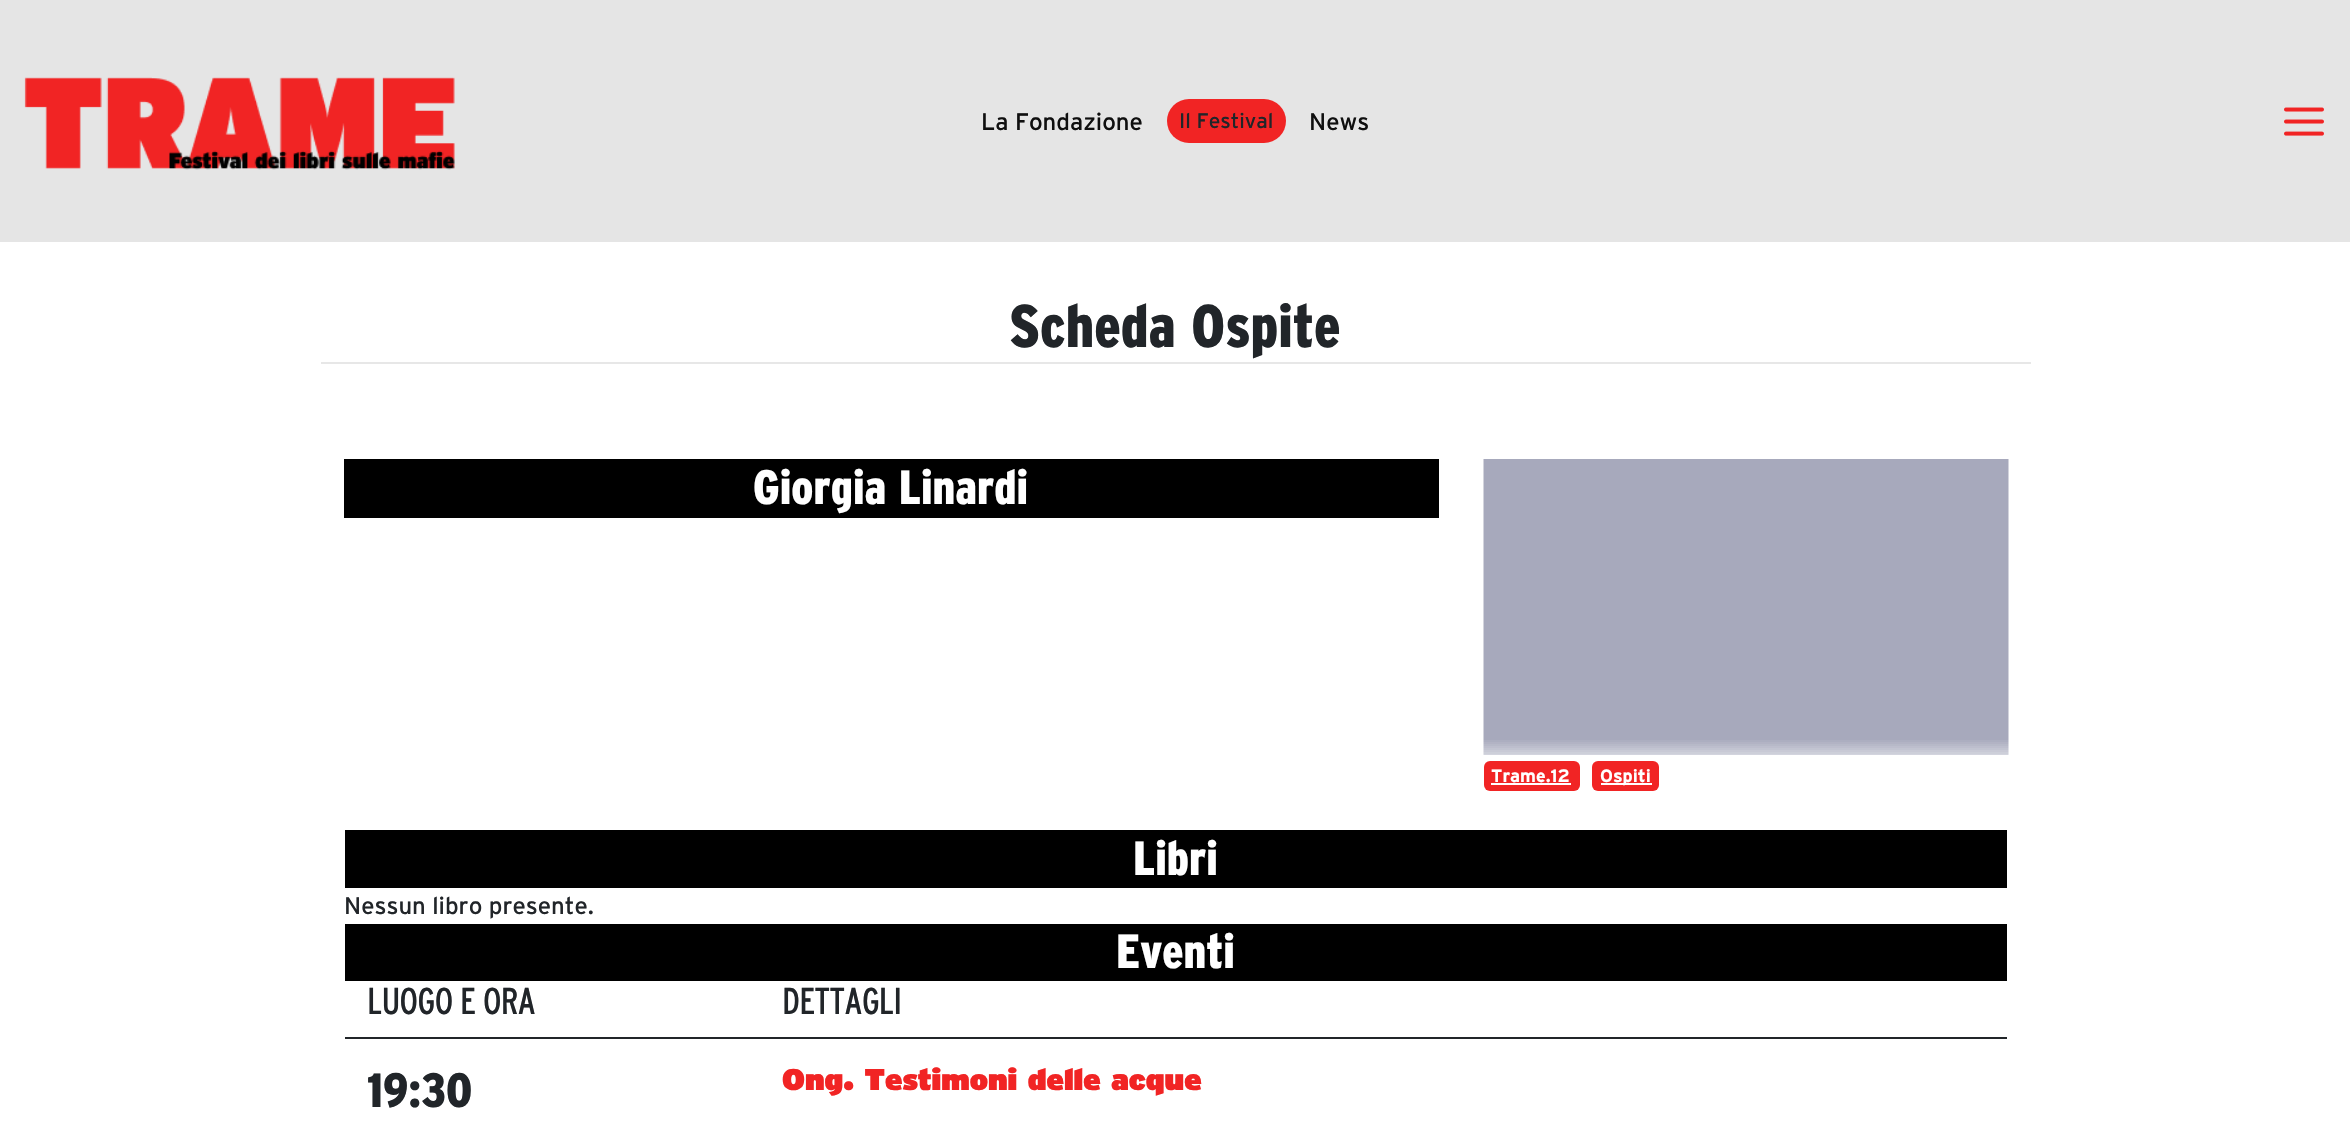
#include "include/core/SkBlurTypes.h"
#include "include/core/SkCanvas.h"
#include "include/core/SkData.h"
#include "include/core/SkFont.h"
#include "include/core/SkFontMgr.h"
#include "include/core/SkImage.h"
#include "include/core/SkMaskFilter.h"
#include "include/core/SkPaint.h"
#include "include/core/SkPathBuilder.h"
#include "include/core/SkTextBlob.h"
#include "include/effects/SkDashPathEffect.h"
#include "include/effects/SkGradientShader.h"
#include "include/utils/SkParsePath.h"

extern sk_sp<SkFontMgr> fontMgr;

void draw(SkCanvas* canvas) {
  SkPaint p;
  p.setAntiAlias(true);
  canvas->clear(SK_ColorWHITE);
  p.setColor(SkColorSetRGB(229, 229, 229));
  canvas->drawRect(SkRect::MakeLTRB(0, 0, 2350, 242), p);
  canvas->drawImageRect(SkImages::DeferredFromEncodedData(SkData::MakeFromFileName("images/1.png")), SkRect::MakeLTRB(24, 77, 455, 170), SkSamplingOptions());
  p.setColor(SkColorSetRGB(241, 36, 36));
  canvas->drawRoundRect(SkRect::MakeLTRB(1167, 99, 1286, 143), 22, 22, p);
  canvas->drawImageRect(SkImages::DeferredFromEncodedData(SkData::MakeFromFileName("images/2.png")), SkRect::MakeLTRB(2284, 107, 2324, 136), SkSamplingOptions());
  p.setColor(SkColorSetRGB(231, 231, 231));
  canvas->drawRect(SkRect::MakeLTRB(321, 362, 2031, 364), p);
  p.setColor(SK_ColorBLACK);
  canvas->drawRect(SkRect::MakeLTRB(344, 459, 1439, 518), p);
  canvas->drawImageRect(SkImages::DeferredFromEncodedData(SkData::MakeFromFileName("images/3.png")), SkRect::MakeLTRB(1483, 459, 2009, 755), SkSamplingOptions());
  p.setColor(SkColorSetRGB(241, 36, 36));
  canvas->drawRoundRect(SkRect::MakeLTRB(1484, 761, 1580, 791), 6, 6, p);
  p.setColor(SK_ColorWHITE);
  canvas->drawRect(SkRect::MakeLTRB(1491, 783, 1571, 785), p);
  p.setColor(SkColorSetRGB(241, 36, 36));
  canvas->drawRoundRect(SkRect::MakeLTRB(1592, 761, 1659, 791), 6, 6, p);
  p.setColor(SK_ColorWHITE);
  canvas->drawRect(SkRect::MakeLTRB(1601, 783, 1652, 785), p);
  p.setColor(SK_ColorBLACK);
  canvas->drawRect(SkRect::MakeLTRB(345, 830, 2007, 888), p);
  canvas->drawRect(SkRect::MakeLTRB(345, 924, 2007, 981), p);
  p.setColor(SkColorSetRGB(33, 37, 41));
  canvas->drawRect(SkRect::MakeLTRB(345, 1037, 2007, 1039), p);
  SkFont font1(fontMgr->matchFamilyStyle("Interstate", SkFontStyle::Normal()), 24);
  font1.setSubpixel(true);
  p.setColor(SkColorSetRGB(15, 15, 15));
  canvas->drawString("La Fondazione", 981, 130, font1, p);
  SkFont font2(fontMgr->matchFamilyStyle("Interstate", SkFontStyle::Normal()), 21);
  font2.setSubpixel(true);
  p.setColor(SkColorSetRGB(33, 37, 41));
  canvas->drawString("Il Festival", 1179, 128, font2, p);
  p.setColor(SkColorSetRGB(15, 15, 15));
  canvas->drawString("News", 1309, 130, font1, p);
  SkFont font3(fontMgr->matchFamilyStyle("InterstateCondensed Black", SkFontStyle(900, SkFontStyle::kNormal_Width, SkFontStyle::kUpright_Slant)), 60);
  font3.setSubpixel(true);
  p.setColor(SkColorSetRGB(33, 37, 41));
  canvas->drawString("Scheda Ospite", 1009, 347, font3, p);
  SkFont font4(fontMgr->matchFamilyStyle("InterstateCondensed Black", SkFontStyle(900, SkFontStyle::kNormal_Width, SkFontStyle::kUpright_Slant)), 48);
  font4.setSubpixel(true);
  p.setColor(SK_ColorWHITE);
  canvas->drawString("Giorgia Linardi", 753, 504, font4, p);
  SkFont font5(fontMgr->matchFamilyStyle("Interstate", SkFontStyle::Bold()), 18);
  font5.setSubpixel(true);
  canvas->drawString("Trame.12", 1491, 782, font5, p);
  canvas->drawString("Ospiti", 1600, 782, font5, p);
  canvas->drawString("Libri", 1133, 875, font4, p);
  p.setColor(SkColorSetRGB(33, 37, 41));
  canvas->drawString("Nessun libro presente.", 344, 914, font1, p);
  p.setColor(SK_ColorWHITE);
  canvas->drawString("Eventi", 1116, 968, font4, p);
  SkFont font6(fontMgr->matchFamilyStyle("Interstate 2", SkFontStyle::Bold()), 36);
  font6.setSubpixel(true);
  p.setColor(SkColorSetRGB(33, 37, 41));
  canvas->drawString("LUOGO E ORA", 367, 1014, font6, p);
  canvas->drawString("DETTAGLI", 782, 1014, font6, p);
  canvas->drawString("19:30", 367, 1107, font4, p);
  SkFont font7(fontMgr->matchFamilyStyle("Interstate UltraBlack", SkFontStyle(800, SkFontStyle::kNormal_Width, SkFontStyle::kUpright_Slant)), 30);
  font7.setSubpixel(true);
  p.setColor(SkColorSetRGB(241, 36, 36));
  canvas->drawString("Ong. Testimoni delle acque", 782, 1090, font7, p);
}
